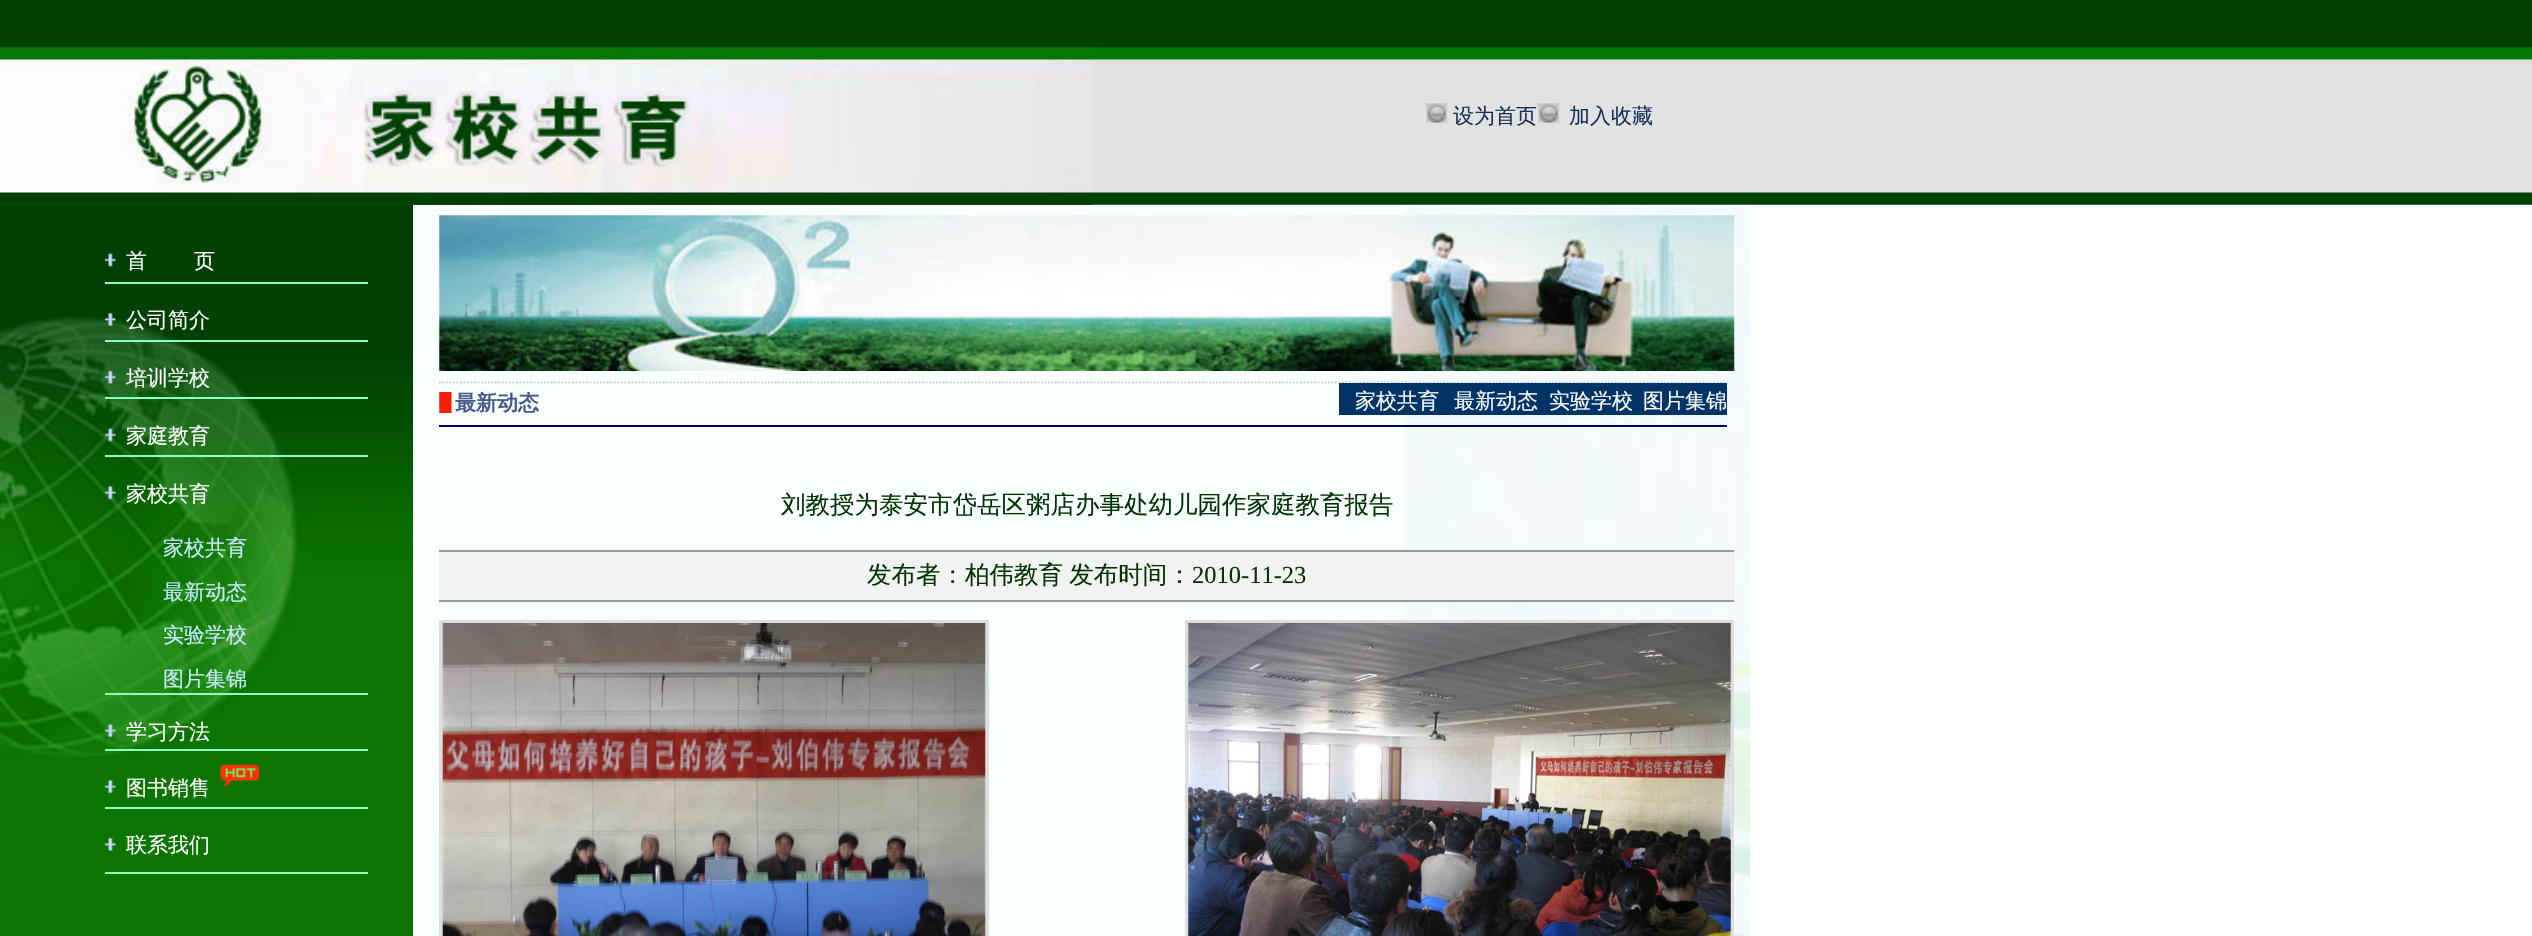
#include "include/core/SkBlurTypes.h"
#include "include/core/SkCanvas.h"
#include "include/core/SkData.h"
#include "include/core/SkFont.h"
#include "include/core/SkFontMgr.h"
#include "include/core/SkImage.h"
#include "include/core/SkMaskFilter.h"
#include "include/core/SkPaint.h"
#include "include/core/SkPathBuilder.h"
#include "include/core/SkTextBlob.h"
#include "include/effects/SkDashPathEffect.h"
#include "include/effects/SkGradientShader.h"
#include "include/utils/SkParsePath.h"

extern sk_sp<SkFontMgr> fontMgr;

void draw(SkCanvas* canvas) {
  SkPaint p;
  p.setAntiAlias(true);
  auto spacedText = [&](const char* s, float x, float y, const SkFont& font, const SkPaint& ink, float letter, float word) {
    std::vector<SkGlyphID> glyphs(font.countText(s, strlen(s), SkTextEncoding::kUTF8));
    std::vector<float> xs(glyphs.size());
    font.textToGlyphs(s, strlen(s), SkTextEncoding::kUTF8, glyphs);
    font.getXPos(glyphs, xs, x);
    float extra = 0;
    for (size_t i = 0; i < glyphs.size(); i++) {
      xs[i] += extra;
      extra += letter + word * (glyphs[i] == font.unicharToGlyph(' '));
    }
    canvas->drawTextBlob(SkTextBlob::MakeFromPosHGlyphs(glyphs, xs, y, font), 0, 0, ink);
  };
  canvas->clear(SK_ColorWHITE);
  canvas->drawImageRect(SkImages::DeferredFromEncodedData(SkData::MakeFromFileName("images/1.png")), SkRect::MakeLTRB(0, 0, 2532, 205), SkSamplingOptions());
  canvas->drawImageRect(SkImages::DeferredFromEncodedData(SkData::MakeFromFileName("images/2.png")), SkRect::MakeLTRB(0, 43, 1092, 205), SkSamplingOptions());
  canvas->drawImageRect(SkImages::DeferredFromEncodedData(SkData::MakeFromFileName("images/3.png")), SkRect::MakeLTRB(1426, 103, 1448, 123), SkSamplingOptions());
  canvas->drawImageRect(SkImages::DeferredFromEncodedData(SkData::MakeFromFileName("images/3.png")), SkRect::MakeLTRB(1538, 103, 1560, 123), SkSamplingOptions());
  p.setColor(SkColorSetRGB(0, 64, 3));
  canvas->drawRect(SkRect::MakeLTRB(0, 205, 413, 316), p);
  canvas->drawImageRect(SkImages::DeferredFromEncodedData(SkData::MakeFromFileName("images/4.png")), SkRect::MakeLTRB(0, 316, 413, 936), SkSamplingOptions());
  canvas->drawImageRect(SkImages::DeferredFromEncodedData(SkData::MakeFromFileName("images/5.png")), SkRect::MakeLTRB(105, 253, 116, 267), SkSamplingOptions());
  p.setColor(SkColorSetRGB(140, 255, 186));
  canvas->drawRect(SkRect::MakeLTRB(105, 282, 368, 284), p);
  canvas->drawImageRect(SkImages::DeferredFromEncodedData(SkData::MakeFromFileName("images/6.png")), SkRect::MakeLTRB(105, 312, 116, 326), SkSamplingOptions());
  canvas->drawRect(SkRect::MakeLTRB(105, 340, 368, 342), p);
  canvas->drawImageRect(SkImages::DeferredFromEncodedData(SkData::MakeFromFileName("images/7.png")), SkRect::MakeLTRB(105, 370, 116, 384), SkSamplingOptions());
  canvas->drawRect(SkRect::MakeLTRB(105, 397, 368, 399), p);
  canvas->drawImageRect(SkImages::DeferredFromEncodedData(SkData::MakeFromFileName("images/8.png")), SkRect::MakeLTRB(105, 428, 116, 442), SkSamplingOptions());
  canvas->drawRect(SkRect::MakeLTRB(105, 455, 368, 457), p);
  canvas->drawImageRect(SkImages::DeferredFromEncodedData(SkData::MakeFromFileName("images/9.png")), SkRect::MakeLTRB(105, 486, 116, 500), SkSamplingOptions());
  canvas->drawRect(SkRect::MakeLTRB(105, 693, 368, 695), p);
  canvas->drawImageRect(SkImages::DeferredFromEncodedData(SkData::MakeFromFileName("images/10.png")), SkRect::MakeLTRB(105, 724, 116, 738), SkSamplingOptions());
  canvas->drawImageRect(SkImages::DeferredFromEncodedData(SkData::MakeFromFileName("images/11.png")), SkRect::MakeLTRB(220, 764, 259, 786), SkSamplingOptions());
  canvas->drawRect(SkRect::MakeLTRB(105, 749, 368, 751), p);
  canvas->drawImageRect(SkImages::DeferredFromEncodedData(SkData::MakeFromFileName("images/12.png")), SkRect::MakeLTRB(105, 780, 116, 794), SkSamplingOptions());
  canvas->drawRect(SkRect::MakeLTRB(105, 807, 368, 809), p);
  canvas->drawImageRect(SkImages::DeferredFromEncodedData(SkData::MakeFromFileName("images/13.png")), SkRect::MakeLTRB(105, 837, 116, 851), SkSamplingOptions());
  canvas->drawRect(SkRect::MakeLTRB(105, 872, 368, 874), p);
  p.setColor(SkColorSetRGB(249, 255, 255));
  canvas->drawRect(SkRect::MakeLTRB(413, 205, 1404, 936), p);
  canvas->drawImageRect(SkImages::DeferredFromEncodedData(SkData::MakeFromFileName("images/14.png")), SkRect::MakeLTRB(1403, 205, 1750, 936), SkSamplingOptions());
  canvas->drawImageRect(SkImages::DeferredFromEncodedData(SkData::MakeFromFileName("images/15.png")), SkRect::MakeLTRB(439, 215, 1735, 371), SkSamplingOptions());
  p.setStyle(SkPaint::kStroke_Style);
  p.setStrokeWidth(1.8f);
  p.setColor(SkColorSetRGB(204, 204, 204));
  p.setPathEffect(SkDashPathEffect::Make({{1.75f, 1.75f}}, 0));
  canvas->drawPath(SkPathBuilder().moveTo(439, 382.5f).lineTo(1727, 382.5f).detach(), p);
  p.setPathEffect(nullptr);
  p.setStyle(SkPaint::kFill_Style);
  p.setColor(SkColorSetRGB(0, 0, 102));
  canvas->drawRect(SkRect::MakeLTRB(439, 425, 1727, 427), p);
  canvas->drawImageRect(SkImages::DeferredFromEncodedData(SkData::MakeFromFileName("images/16.png")), SkRect::MakeLTRB(439, 392, 452, 413), SkSamplingOptions());
  p.setColor(SkColorSetRGB(0, 51, 102));
  canvas->drawRect(SkRect::MakeLTRB(1339, 383, 1727, 415), p);
  p.setColor(SkColorSetRGB(242, 242, 242));
  canvas->drawRect(SkRect::MakeLTRB(439, 552, 1734, 600), p);
  p.setColor(SkColorSetRGB(153, 153, 153));
  canvas->drawRect(SkRect::MakeLTRB(439, 550, 1734, 552), p);
  canvas->drawRect(SkRect::MakeLTRB(439, 600, 1734, 602), p);
  p.setStyle(SkPaint::kStroke_Style);
  p.setStrokeWidth(4);
  p.setColor(SkColorSetRGB(221, 221, 221));
  canvas->drawRect(SkRect::MakeLTRB(441, 622, 987, 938), p);
  canvas->drawImageRect(SkImages::DeferredFromEncodedData(SkData::MakeFromFileName("images/17.png")), SkRect::MakeLTRB(442, 623, 986, 936), SkSamplingOptions());
  canvas->drawRect(SkRect::MakeLTRB(1187, 622, 1732, 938), p);
  canvas->drawImageRect(SkImages::DeferredFromEncodedData(SkData::MakeFromFileName("images/18.png")), SkRect::MakeLTRB(1188, 623, 1731, 936), SkSamplingOptions());
  SkFont font1(fontMgr->matchFamilyStyle("WenQuanYi Zen Hei", SkFontStyle(500, SkFontStyle::kNormal_Width, SkFontStyle::kUpright_Slant)), 21);
  font1.setSubpixel(true);
  p.setStyle(SkPaint::kFill_Style);
  p.setColor(SkColorSetRGB(22, 47, 86));
  canvas->drawString("设为首页", 1453, 123, font1, p);
  canvas->drawString("加入收藏", 1569, 123, font1, p);
  p.setColor(SK_ColorWHITE);
  canvas->drawString("首", 126, 268, font1, p);
  canvas->drawString("页", 194, 268, font1, p);
  canvas->drawString("公司简介", 126, 327, font1, p);
  canvas->drawString("培训学校", 126, 385, font1, p);
  canvas->drawString("家庭教育", 126, 443, font1, p);
  canvas->drawString("家校共育", 126, 501, font1, p);
  p.setColor(SkColorSetRGB(200, 235, 255));
  canvas->drawString("家校共育", 163, 555, font1, p);
  canvas->drawString("最新动态", 163, 599, font1, p);
  canvas->drawString("实验学校", 163, 642, font1, p);
  canvas->drawString("图片集锦", 163, 686, font1, p);
  p.setColor(SK_ColorWHITE);
  canvas->drawString("学习方法", 126, 739, font1, p);
  canvas->drawString("图书销售", 126, 795, font1, p);
  canvas->drawString("联系我们", 126, 852, font1, p);
  SkFont font2(fontMgr->matchFamilyStyle("WenQuanYi Zen Hei", SkFontStyle::Bold()), 21);
  font2.setSubpixel(true);
  p.setColor(SkColorSetRGB(69, 89, 140));
  canvas->drawString("最新动态", 455, 410, font2, p);
  p.setColor(SK_ColorWHITE);
  canvas->drawString("家校共育", 1355, 408, font1, p);
  canvas->drawString("最新动态", 1454, 408, font1, p);
  canvas->drawString("实验学校", 1549, 408, font1, p);
  canvas->drawString("图片集锦", 1643, 408, font1, p);
  SkFont font3(fontMgr->matchFamilyStyle("WenQuanYi Zen Hei", SkFontStyle(500, SkFontStyle::kNormal_Width, SkFontStyle::kUpright_Slant)), 24.5f);
  font3.setSubpixel(true);
  p.setColor(SkColorSetRGB(0, 51, 0));
  canvas->drawString("刘教授为泰安市岱岳区粥店办事处幼儿园作家庭教育报告", 781, 513, font3, p);
  spacedText("发布者：柏伟教育 发布时间：", 867, 583, font3, p, 0, -1);
  SkFont font4(fontMgr->matchFamilyStyle("Liberation Serif", SkFontStyle::Normal()), 24.5f);
  font4.setSubpixel(true);
  canvas->drawString("2010-11-23", 1192, 583, font4, p);
}
